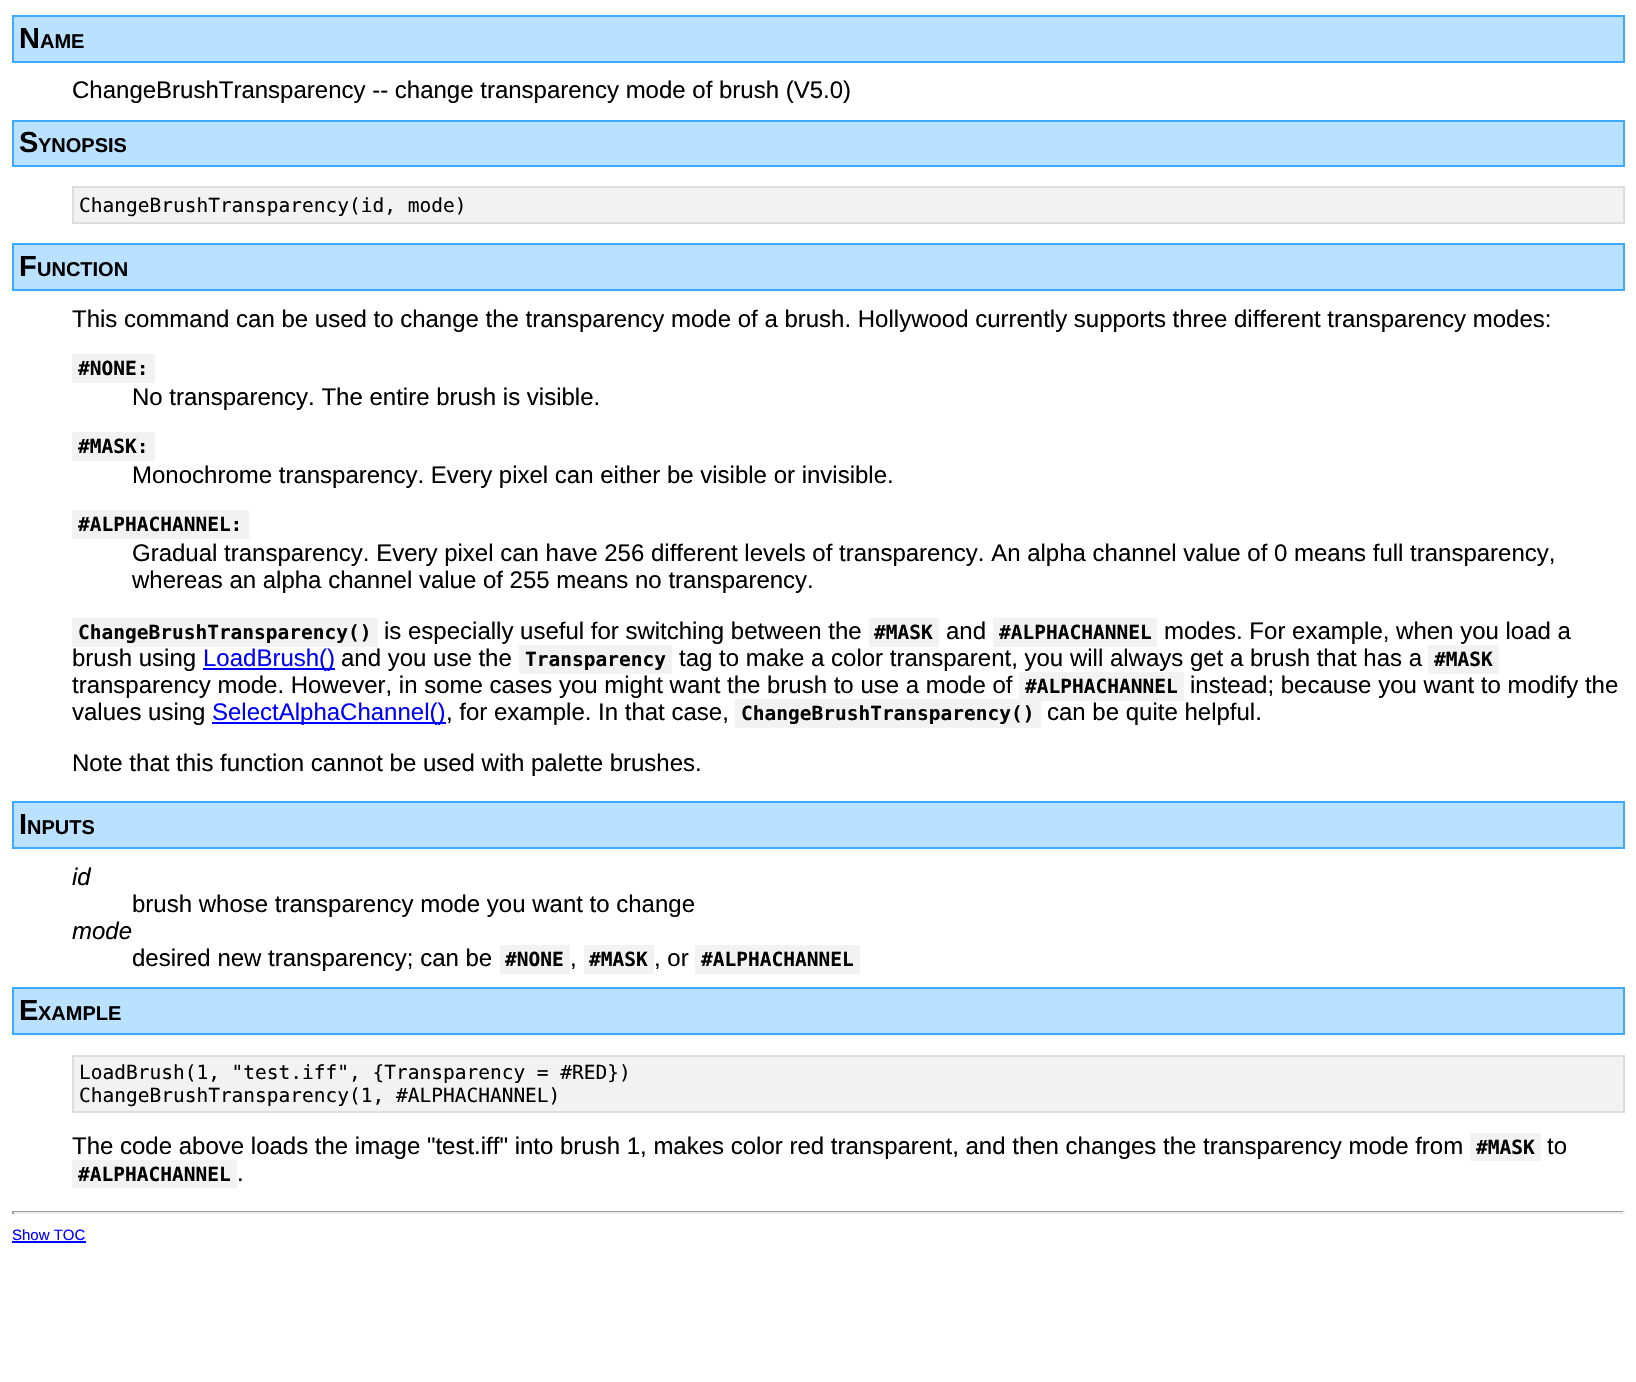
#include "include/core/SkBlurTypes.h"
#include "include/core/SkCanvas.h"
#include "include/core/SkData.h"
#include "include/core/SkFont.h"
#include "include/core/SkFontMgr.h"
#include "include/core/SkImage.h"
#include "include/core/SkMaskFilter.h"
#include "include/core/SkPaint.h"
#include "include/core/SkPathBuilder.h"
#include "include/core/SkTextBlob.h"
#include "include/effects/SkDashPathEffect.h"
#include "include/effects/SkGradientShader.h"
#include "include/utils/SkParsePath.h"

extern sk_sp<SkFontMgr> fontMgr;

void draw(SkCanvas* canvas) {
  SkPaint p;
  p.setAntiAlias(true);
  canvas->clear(SK_ColorWHITE);
  p.setColor(SkColorSetRGB(186, 225, 255));
  canvas->drawRect(SkRect::MakeLTRB(13, 16, 1624, 62), p);
  p.setStyle(SkPaint::kStroke_Style);
  p.setStrokeWidth(2);
  p.setColor(SkColorSetRGB(59, 170, 255));
  canvas->drawRect(SkRect::MakeLTRB(13, 16, 1624, 62), p);
  p.setStyle(SkPaint::kFill_Style);
  p.setColor(SkColorSetRGB(186, 225, 255));
  canvas->drawRect(SkRect::MakeLTRB(13, 121, 1624, 166), p);
  p.setStyle(SkPaint::kStroke_Style);
  p.setColor(SkColorSetRGB(59, 170, 255));
  canvas->drawRect(SkRect::MakeLTRB(13, 121, 1624, 166), p);
  p.setStyle(SkPaint::kFill_Style);
  p.setColor(SkColorSetRGB(242, 242, 242));
  canvas->drawRect(SkRect::MakeLTRB(73, 187, 1624, 223), p);
  p.setStyle(SkPaint::kStroke_Style);
  p.setColor(SkColorSetRGB(221, 221, 221));
  canvas->drawRect(SkRect::MakeLTRB(73, 187, 1624, 223), p);
  p.setStyle(SkPaint::kFill_Style);
  p.setColor(SkColorSetRGB(186, 225, 255));
  canvas->drawRect(SkRect::MakeLTRB(13, 244, 1624, 290), p);
  p.setStyle(SkPaint::kStroke_Style);
  p.setColor(SkColorSetRGB(59, 170, 255));
  canvas->drawRect(SkRect::MakeLTRB(13, 244, 1624, 290), p);
  p.setStyle(SkPaint::kFill_Style);
  p.setColor(SkColorSetRGB(242, 242, 242));
  canvas->drawRect(SkRect::MakeLTRB(72, 354, 155, 383), p);
  canvas->drawRect(SkRect::MakeLTRB(72, 432, 155, 461), p);
  canvas->drawRect(SkRect::MakeLTRB(72, 510, 249, 539), p);
  canvas->drawRect(SkRect::MakeLTRB(72, 618, 378, 647), p);
  canvas->drawRect(SkRect::MakeLTRB(869, 618, 939, 647), p);
  canvas->drawRect(SkRect::MakeLTRB(993, 618, 1157, 647), p);
  p.setColor(SkColorSetRGB(0, 0, 255));
  canvas->drawRect(SkRect::MakeLTRB(203, 668, 335, 670), p);
  p.setColor(SkColorSetRGB(242, 242, 242));
  canvas->drawRect(SkRect::MakeLTRB(519, 645, 672, 674), p);
  canvas->drawRect(SkRect::MakeLTRB(1428, 645, 1499, 674), p);
  canvas->drawRect(SkRect::MakeLTRB(1019, 672, 1184, 701), p);
  p.setColor(SkColorSetRGB(0, 0, 255));
  canvas->drawRect(SkRect::MakeLTRB(212, 722, 446, 724), p);
  p.setColor(SkColorSetRGB(242, 242, 242));
  canvas->drawRect(SkRect::MakeLTRB(735, 699, 1041, 728), p);
  p.setColor(SkColorSetRGB(186, 225, 255));
  canvas->drawRect(SkRect::MakeLTRB(13, 802, 1624, 848), p);
  p.setStyle(SkPaint::kStroke_Style);
  p.setColor(SkColorSetRGB(59, 170, 255));
  canvas->drawRect(SkRect::MakeLTRB(13, 802, 1624, 848), p);
  p.setStyle(SkPaint::kFill_Style);
  p.setColor(SkColorSetRGB(242, 242, 242));
  canvas->drawRect(SkRect::MakeLTRB(500, 945, 570, 974), p);
  canvas->drawRect(SkRect::MakeLTRB(584, 945, 654, 974), p);
  canvas->drawRect(SkRect::MakeLTRB(695, 945, 860, 974), p);
  p.setColor(SkColorSetRGB(186, 225, 255));
  canvas->drawRect(SkRect::MakeLTRB(13, 988, 1624, 1034), p);
  p.setStyle(SkPaint::kStroke_Style);
  p.setColor(SkColorSetRGB(59, 170, 255));
  canvas->drawRect(SkRect::MakeLTRB(13, 988, 1624, 1034), p);
  p.setStyle(SkPaint::kFill_Style);
  p.setColor(SkColorSetRGB(242, 242, 242));
  canvas->drawRect(SkRect::MakeLTRB(73, 1056, 1624, 1112), p);
  p.setStyle(SkPaint::kStroke_Style);
  p.setColor(SkColorSetRGB(221, 221, 221));
  canvas->drawRect(SkRect::MakeLTRB(73, 1056, 1624, 1112), p);
  p.setStyle(SkPaint::kFill_Style);
  p.setColor(SkColorSetRGB(242, 242, 242));
  canvas->drawRect(SkRect::MakeLTRB(1470, 1133, 1541, 1161), p);
  canvas->drawRect(SkRect::MakeLTRB(72, 1160, 237, 1188), p);
  p.setColor(SkColorSetRGB(159, 159, 159));
  canvas->drawRect(SkRect::MakeLTRB(12, 1211, 1625, 1212), p);
  p.setColor(SkColorSetRGB(238, 238, 238));
  canvas->drawRect(SkRect::MakeLTRB(1623, 1211, 1625, 1214), p);
  canvas->drawRect(SkRect::MakeLTRB(12, 1212, 1625, 1214), p);
  p.setColor(SkColorSetRGB(159, 159, 159));
  canvas->drawRect(SkRect::MakeLTRB(12, 1211, 14, 1214), p);
  p.setColor(SkColorSetRGB(0, 0, 255));
  canvas->drawRect(SkRect::MakeLTRB(12, 1241, 86, 1243), p);
  SkFont font1(fontMgr->matchFamilyStyle("Liberation Sans", SkFontStyle::Bold()), 29);
  font1.setSubpixel(true);
  p.setColor(SK_ColorBLACK);
  canvas->drawString("N", 19, 48, font1, p);
  SkFont font2(fontMgr->matchFamilyStyle("Liberation Sans", SkFontStyle::Bold()), 20);
  font2.setSubpixel(true);
  canvas->drawString("AME", 40, 48, font2, p);
  SkFont font3(fontMgr->matchFamilyStyle("Liberation Sans", SkFontStyle::Normal()), 24);
  font3.setSubpixel(true);
  canvas->drawString("ChangeBrushTransparency -- change transparency mode of brush (V5.0)", 72, 98, font3, p);
  canvas->drawString("S", 19, 152, font1, p);
  canvas->drawString("YNOPSIS", 38, 152, font2, p);
  SkFont font4(fontMgr->matchFamilyStyle("DejaVu Sans Mono", SkFontStyle::Normal()), 19.5f);
  font4.setSubpixel(true);
  canvas->drawString("ChangeBrushTransparency(id, mode)", 79, 212, font4, p);
  canvas->drawString("F", 19, 276, font1, p);
  canvas->drawString("UNCTION", 37, 276, font2, p);
  canvas->drawString("This command can be used to change the transparency mode of a brush. Hollywood currently supports three different transparency modes:", 72, 327, font3, p);
  SkFont font5(fontMgr->matchFamilyStyle("DejaVu Sans Mono", SkFontStyle::Bold()), 19.5f);
  font5.setSubpixel(true);
  canvas->drawString("#NONE:", 78, 375, font5, p);
  canvas->drawString("No transparency. The entire brush is visible.", 132, 405, font3, p);
  canvas->drawString("#MASK:", 78, 453, font5, p);
  canvas->drawString("Monochrome transparency. Every pixel can either be visible or invisible.", 132, 483, font3, p);
  canvas->drawString("#ALPHACHANNEL:", 78, 531, font5, p);
  canvas->drawString("Gradual transparency. Every pixel can have 256 different levels of transparency. An alpha channel value of 0 means full transparency,", 132, 561, font3, p);
  canvas->drawString("whereas an alpha channel value of 255 means no transparency.", 132, 588, font3, p);
  canvas->drawString("ChangeBrushTransparency()", 78, 639, font5, p);
  canvas->drawString("is especially useful for switching between the", 384, 639, font3, p);
  canvas->drawString("#MASK", 874, 639, font5, p);
  canvas->drawString("and", 946, 639, font3, p);
  canvas->drawString("#ALPHACHANNEL", 999, 639, font5, p);
  canvas->drawString("modes. For example, when you load a", 1164, 639, font3, p);
  canvas->drawString("brush using", 72, 666, font3, p);
  p.setColor(SkColorSetRGB(0, 0, 255));
  canvas->drawString("LoadBrush()", 203, 666, font3, p);
  p.setColor(SK_ColorBLACK);
  canvas->drawString("and you use the", 341, 666, font3, p);
  canvas->drawString("Transparency", 525, 666, font5, p);
  canvas->drawString("tag to make a color transparent, you will always get a brush that has a", 679, 666, font3, p);
  canvas->drawString("#MASK", 1434, 666, font5, p);
  canvas->drawString("transparency mode. However, in some cases you might want the brush to use a mode of", 72, 693, font3, p);
  canvas->drawString("#ALPHACHANNEL", 1025, 693, font5, p);
  canvas->drawString("instead; because you want to modify the", 1190, 693, font3, p);
  canvas->drawString("values using", 72, 720, font3, p);
  p.setColor(SkColorSetRGB(0, 0, 255));
  canvas->drawString("SelectAlphaChannel()", 212, 720, font3, p);
  p.setColor(SK_ColorBLACK);
  canvas->drawString(", for example. In that case,", 446, 720, font3, p);
  canvas->drawString("ChangeBrushTransparency()", 741, 720, font5, p);
  canvas->drawString("can be quite helpful.", 1047, 720, font3, p);
  canvas->drawString("Note that this function cannot be used with palette brushes.", 72, 771, font3, p);
  canvas->drawString("I", 19, 834, font1, p);
  canvas->drawString("NPUTS", 27, 834, font2, p);
  SkFont font6(fontMgr->matchFamilyStyle("Liberation Sans", SkFontStyle::Italic()), 24);
  font6.setSubpixel(true);
  canvas->drawString("id", 72, 885, font6, p);
  canvas->drawString("brush whose transparency mode you want to change", 132, 912, font3, p);
  canvas->drawString("mode", 72, 939, font6, p);
  canvas->drawString("desired new transparency; can be", 132, 966, font3, p);
  canvas->drawString("#NONE", 505, 966, font5, p);
  canvas->drawString(",", 570, 966, font3, p);
  canvas->drawString("#MASK", 589, 966, font5, p);
  canvas->drawString(", or", 654, 966, font3, p);
  canvas->drawString("#ALPHACHANNEL", 701, 966, font5, p);
  canvas->drawString("E", 19, 1020, font1, p);
  canvas->drawString("XAMPLE", 38, 1020, font2, p);
  canvas->drawString("LoadBrush(1, \"test.iff\", {Transparency = #RED})", 79, 1079, font4, p);
  canvas->drawString("ChangeBrushTransparency(1, #ALPHACHANNEL)", 79, 1102, font4, p);
  canvas->drawString("The code above loads the image \"test.iff\" into brush 1, makes color red transparent, and then changes the transparency mode from", 72, 1154, font3, p);
  canvas->drawString("#MASK", 1476, 1154, font5, p);
  canvas->drawString("to", 1547, 1154, font3, p);
  canvas->drawString("#ALPHACHANNEL", 78, 1181, font5, p);
  canvas->drawString(".", 237, 1181, font3, p);
  SkFont font7(fontMgr->matchFamilyStyle("Liberation Sans", SkFontStyle::Normal()), 15);
  font7.setSubpixel(true);
  p.setColor(SkColorSetRGB(0, 0, 255));
  canvas->drawString("Show TOC", 12, 1240, font7, p);
}
